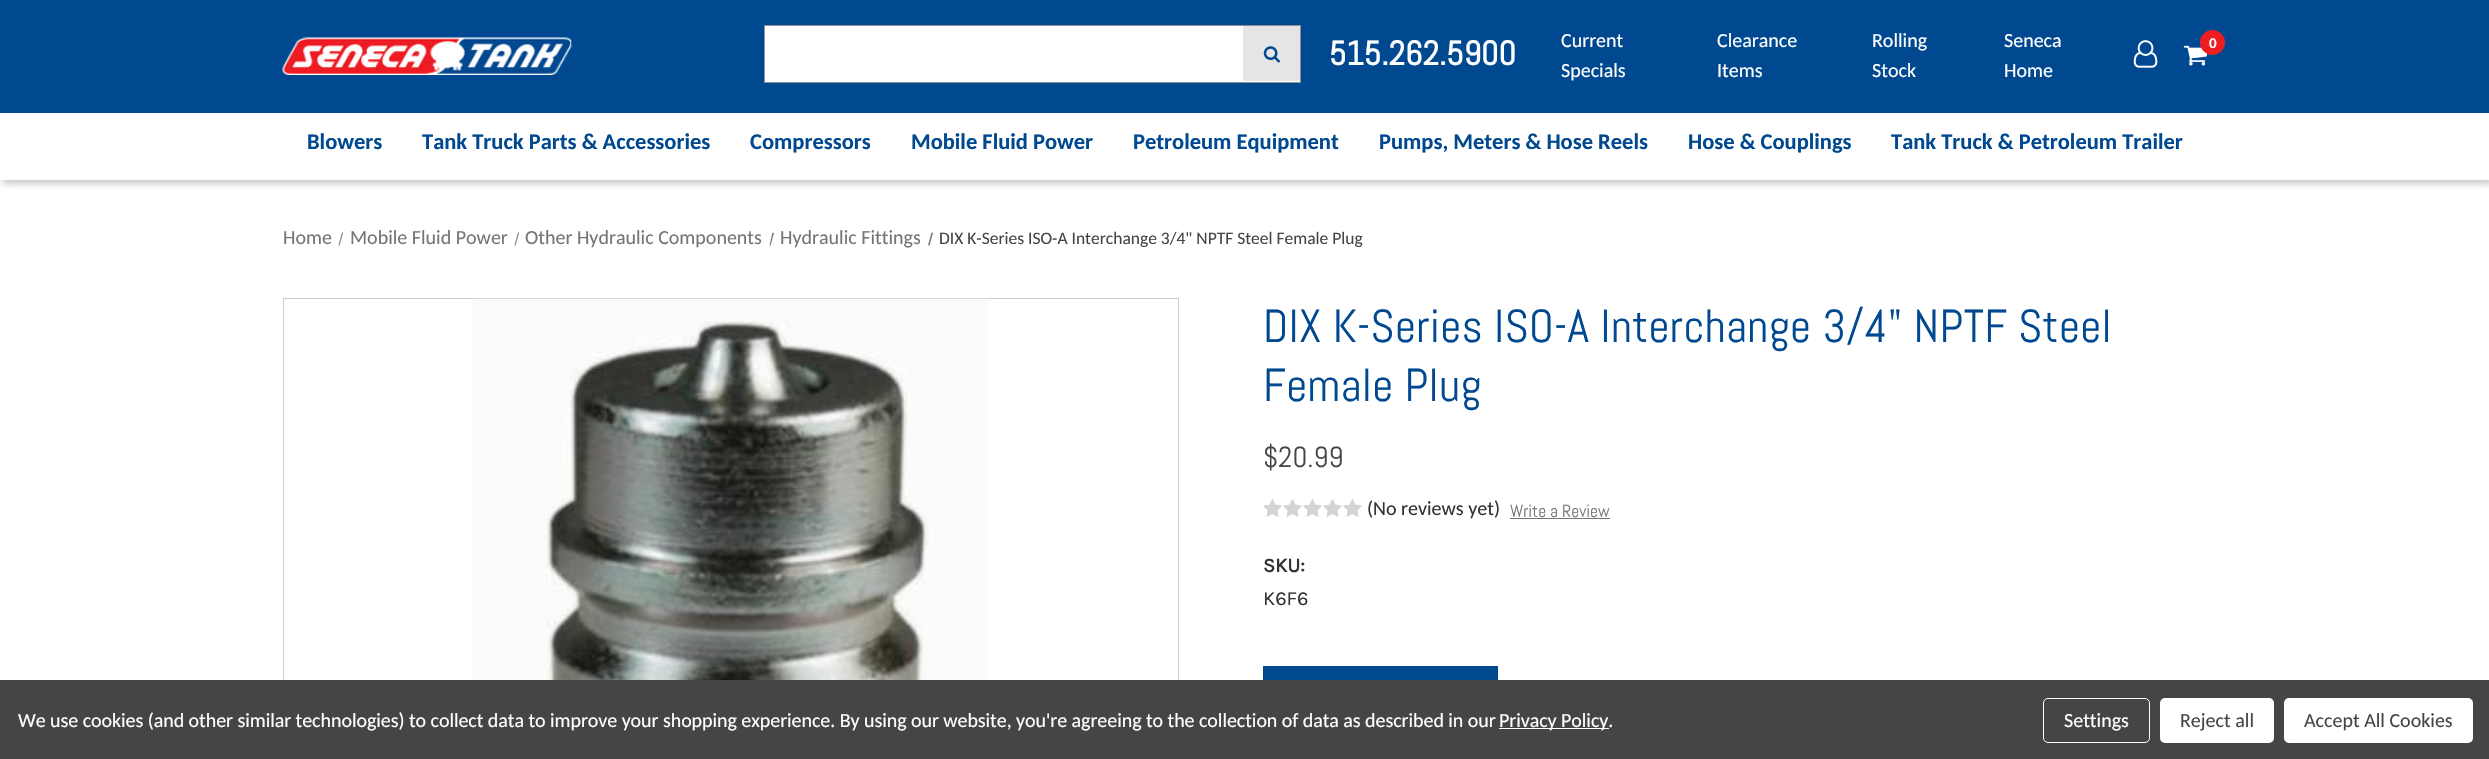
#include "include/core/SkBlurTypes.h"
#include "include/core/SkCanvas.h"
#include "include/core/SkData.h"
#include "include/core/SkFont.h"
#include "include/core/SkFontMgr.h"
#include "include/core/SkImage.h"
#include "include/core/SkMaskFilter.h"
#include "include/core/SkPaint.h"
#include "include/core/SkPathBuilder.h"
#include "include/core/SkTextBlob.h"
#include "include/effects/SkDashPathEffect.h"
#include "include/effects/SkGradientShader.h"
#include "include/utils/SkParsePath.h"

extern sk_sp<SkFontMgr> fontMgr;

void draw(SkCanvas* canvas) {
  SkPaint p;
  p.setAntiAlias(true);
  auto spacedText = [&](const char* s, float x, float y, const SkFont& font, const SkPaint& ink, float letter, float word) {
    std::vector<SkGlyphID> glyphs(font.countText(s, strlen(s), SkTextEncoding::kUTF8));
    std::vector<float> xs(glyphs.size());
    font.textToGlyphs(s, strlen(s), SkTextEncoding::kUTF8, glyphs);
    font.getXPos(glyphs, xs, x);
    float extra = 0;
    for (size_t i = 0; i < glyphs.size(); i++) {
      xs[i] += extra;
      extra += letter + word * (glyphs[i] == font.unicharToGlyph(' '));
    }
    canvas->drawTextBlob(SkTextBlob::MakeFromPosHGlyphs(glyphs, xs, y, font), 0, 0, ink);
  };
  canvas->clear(SK_ColorWHITE);
  canvas->save();
  canvas->clipRect(SkRect::MakeLTRB(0, 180, 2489, 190));
  p.setColor(SkColorSetRGB(204, 204, 204));
  p.setMaskFilter(SkMaskFilter::MakeBlur(kNormal_SkBlurStyle, 3));
  canvas->drawRect(SkRect::MakeLTRB(3, 116, 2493, 184), p);
  p.setMaskFilter(nullptr);
  canvas->restore();
  p.setColor(SkColorSetRGB(0, 73, 144));
  canvas->drawRect(SkRect::MakeLTRB(0, 0, 2489, 113), p);
  canvas->drawImageRect(SkImages::DeferredFromEncodedData(SkData::MakeFromFileName("images/1.png")), SkRect::MakeLTRB(282, 37, 572, 75), SkSamplingOptions());
  p.setColor(SK_ColorWHITE);
  canvas->drawRect(SkRect::MakeLTRB(764.5f, 25.5f, 1300.5f, 82.5f), p);
  p.setStyle(SkPaint::kStroke_Style);
  p.setStrokeWidth(1);
  p.setColor(SkColorSetRGB(143, 143, 143));
  canvas->drawRect(SkRect::MakeLTRB(764.5f, 25.5f, 1300.5f, 82.5f), p);
  p.setStyle(SkPaint::kFill_Style);
  p.setColor(SkColorSetRGB(229, 229, 229));
  canvas->drawRect(SkRect::MakeLTRB(1243, 26, 1300, 81), p);
  canvas->drawImageRect(SkImages::DeferredFromEncodedData(SkData::MakeFromFileName("images/2.png")), SkRect::MakeLTRB(1263, 46, 1280, 63), SkSamplingOptions());
  canvas->drawImageRect(SkImages::DeferredFromEncodedData(SkData::MakeFromFileName("images/3.png")), SkRect::MakeLTRB(2133, 40, 2158, 68), SkSamplingOptions());
  canvas->drawImageRect(SkImages::DeferredFromEncodedData(SkData::MakeFromFileName("images/4.png")), SkRect::MakeLTRB(2183, 45, 2207, 66), SkSamplingOptions());
  p.setColor(SkColorSetRGB(237, 30, 34));
  canvas->drawCircle(2212.5f, 42.5f, 12.5f, p);
  p.setColor(SkColorSetRGB(117, 117, 117));
  canvas->drawPath(SkPathBuilder().moveTo(342, 232.5f).lineTo(343, 233).lineTo(339.5f, 245.5f).lineTo(338.5f, 245.5f).close().detach(), p);
  canvas->drawPath(SkPathBuilder().moveTo(518, 232.5f).lineTo(519, 233).lineTo(515.5f, 245.5f).lineTo(514.5f, 245.5f).close().detach(), p);
  canvas->drawPath(SkPathBuilder().moveTo(772.5f, 232.5f).lineTo(774, 233).lineTo(770.5f, 245.5f).lineTo(769.5f, 245.5f).close().detach(), p);
  canvas->drawPath(SkPathBuilder().moveTo(931.5f, 232.5f).lineTo(933, 233).lineTo(929.5f, 245.5f).lineTo(928, 245.5f).close().detach(), p);
  p.setStyle(SkPaint::kStroke_Style);
  p.setColor(SkColorSetRGB(204, 204, 204));
  canvas->drawRect(SkRect::MakeLTRB(283.5f, 298.5f, 1178.5f, 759.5f), p);
  canvas->drawImageRect(SkImages::DeferredFromEncodedData(SkData::MakeFromFileName("images/5.png")), SkRect::MakeLTRB(472, 298, 989, 680), SkSamplingOptions());
  canvas->drawImageRect(SkImages::DeferredFromEncodedData(SkData::MakeFromFileName("images/6.png")), SkRect::MakeLTRB(1263, 499, 1282, 517), SkSamplingOptions());
  canvas->drawImageRect(SkImages::DeferredFromEncodedData(SkData::MakeFromFileName("images/6.png")), SkRect::MakeLTRB(1283, 499, 1302, 517), SkSamplingOptions());
  canvas->drawImageRect(SkImages::DeferredFromEncodedData(SkData::MakeFromFileName("images/6.png")), SkRect::MakeLTRB(1303, 499, 1322, 517), SkSamplingOptions());
  canvas->drawImageRect(SkImages::DeferredFromEncodedData(SkData::MakeFromFileName("images/6.png")), SkRect::MakeLTRB(1323, 499, 1342, 517), SkSamplingOptions());
  canvas->drawImageRect(SkImages::DeferredFromEncodedData(SkData::MakeFromFileName("images/6.png")), SkRect::MakeLTRB(1343, 499, 1362, 517), SkSamplingOptions());
  p.setStyle(SkPaint::kFill_Style);
  p.setColor(SkColorSetRGB(117, 117, 117));
  canvas->drawRect(SkRect::MakeLTRB(1510, 518, 1610, 519), p);
  p.setColor(SkColorSetRGB(0, 73, 144));
  canvas->drawRect(SkRect::MakeLTRB(1263, 666, 1498, 680), p);
  p.setColor(SkColorSetRGB(69, 69, 69));
  canvas->drawRect(SkRect::MakeLTRB(0, 680, 2489, 759), p);
  p.setColor(SK_ColorWHITE);
  canvas->drawRect(SkRect::MakeLTRB(1499, 728, 1609, 729), p);
  p.setStyle(SkPaint::kStroke_Style);
  canvas->drawRoundRect(SkRect::MakeLTRB(2043.5f, 698.5f, 2149.5f, 742.5f), 4.5f, 4.5f, p);
  p.setStyle(SkPaint::kFill_Style);
  canvas->drawRoundRect(SkRect::MakeLTRB(2160, 698, 2274, 743), 5, 5, p);
  canvas->drawRoundRect(SkRect::MakeLTRB(2284, 698, 2473, 743), 5, 5, p);
  SkFont font1(fontMgr->matchFamilyStyle("Abel", SkFontStyle::Bold()), 33.75f);
  font1.setSubpixel(true);
  canvas->drawString("515.262.5900", 1329, 65, font1, p);
  SkFont font2(fontMgr->matchFamilyStyle("Carlito", SkFontStyle::Normal()), 20);
  font2.setSubpixel(true);
  canvas->drawString("Current", 1561, 47, font2, p);
  canvas->drawString("Specials", 1561, 77, font2, p);
  canvas->drawString("Clearance", 1717, 47, font2, p);
  canvas->drawString("Items", 1717, 77, font2, p);
  canvas->drawString("Rolling", 1872, 47, font2, p);
  canvas->drawString("Stock", 1872, 77, font2, p);
  canvas->drawString("Seneca", 2004, 47, font2, p);
  canvas->drawString("Home", 2004, 77, font2, p);
  SkFont font3(fontMgr->matchFamilyStyle("Carlito", SkFontStyle::Bold()), 15);
  font3.setSubpixel(true);
  canvas->drawString("0", 2209, 48, font3, p);
  SkFont font4(fontMgr->matchFamilyStyle("Carlito", SkFontStyle::Bold()), 22.5f);
  font4.setSubpixel(true);
  p.setColor(SkColorSetRGB(0, 73, 144));
  canvas->drawString("Blowers", 307, 149, font4, p);
  canvas->drawString("Tank Truck Parts & Accessories", 422, 149, font4, p);
  canvas->drawString("Compressors", 750, 149, font4, p);
  canvas->drawString("Mobile Fluid Power", 911, 149, font4, p);
  canvas->drawString("Petroleum Equipment", 1133, 149, font4, p);
  canvas->drawString("Pumps, Meters & Hose Reels", 1379, 149, font4, p);
  canvas->drawString("Hose & Couplings", 1688, 149, font4, p);
  canvas->drawString("Tank Truck & Petroleum Trailer", 1891, 149, font4, p);
  p.setColor(SkColorSetRGB(117, 117, 117));
  canvas->drawString("Home", 283, 244, font2, p);
  canvas->drawString("Mobile Fluid Power", 350, 244, font2, p);
  canvas->drawString("Other Hydraulic Components", 525, 244, font2, p);
  canvas->drawString("Hydraulic Fittings", 780, 244, font2, p);
  SkFont font5(fontMgr->matchFamilyStyle("Carlito", SkFontStyle::Normal()), 17.5f);
  font5.setSubpixel(true);
  p.setColor(SkColorSetRGB(69, 69, 69));
  canvas->drawString("DIX K-Series ISO-A Interchange 3/4\" NPTF Steel Female Plug", 939, 244, font5, p);
  SkFont font6(fontMgr->matchFamilyStyle("Abel", SkFontStyle::Normal()), 46.25f);
  font6.setSubpixel(true);
  p.setColor(SkColorSetRGB(0, 73, 144));
  spacedText("DIX K-Series ISO-A Interchange 3/4\" NPTF Steel", 1263, 342, font6, p, 0.3f, 0);
  spacedText("Female Plug", 1263, 401, font6, p, 0.3f, 0);
  SkFont font7(fontMgr->matchFamilyStyle("Abel", SkFontStyle::Normal()), 29);
  font7.setSubpixel(true);
  p.setColor(SkColorSetRGB(69, 69, 69));
  canvas->drawString("$20.99", 1263, 467, font7, p);
  p.setColor(SkColorSetRGB(51, 51, 51));
  canvas->drawString("(No reviews yet)", 1367, 515, font2, p);
  SkFont font8(fontMgr->matchFamilyStyle("Abel", SkFontStyle::Normal()), 17.5f);
  font8.setSubpixel(true);
  p.setColor(SkColorSetRGB(117, 117, 117));
  canvas->drawString("Write a Review", 1510, 517, font8, p);
  SkFont font9(fontMgr->matchFamilyStyle("Karla", SkFontStyle::Bold()), 20);
  font9.setSubpixel(true);
  p.setColor(SkColorSetRGB(51, 51, 51));
  canvas->drawString("SKU:", 1263, 572, font9, p);
  SkFont font10(fontMgr->matchFamilyStyle("Karla", SkFontStyle::Normal()), 20);
  font10.setSubpixel(true);
  canvas->drawString("K6F6", 1263, 605, font10, p);
  p.setColor(SK_ColorWHITE);
  spacedText("We use cookies (and other similar technologies) to collect data to improve your shopping experience. By using our website, you're agreeing to the collection of data as described in our", 18, 727, font2, p, -0.06f, 0);
  spacedText("Privacy Policy.", 1499, 727, font2, p, -0.06f, 0);
  canvas->drawString("Settings", 2064, 727, font2, p);
  p.setColor(SkColorSetRGB(69, 69, 69));
  canvas->drawString("Reject all", 2180, 727, font2, p);
  canvas->drawString("Accept All Cookies", 2304, 727, font2, p);
}
